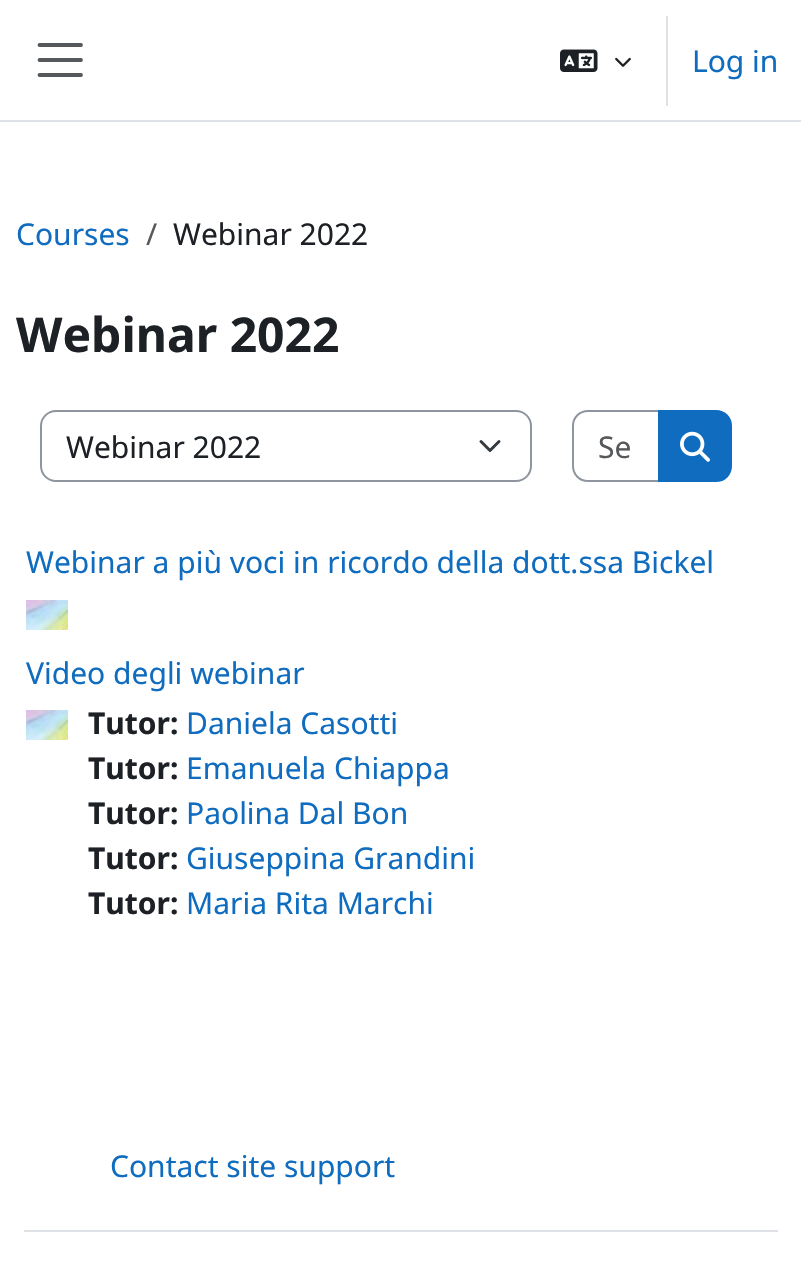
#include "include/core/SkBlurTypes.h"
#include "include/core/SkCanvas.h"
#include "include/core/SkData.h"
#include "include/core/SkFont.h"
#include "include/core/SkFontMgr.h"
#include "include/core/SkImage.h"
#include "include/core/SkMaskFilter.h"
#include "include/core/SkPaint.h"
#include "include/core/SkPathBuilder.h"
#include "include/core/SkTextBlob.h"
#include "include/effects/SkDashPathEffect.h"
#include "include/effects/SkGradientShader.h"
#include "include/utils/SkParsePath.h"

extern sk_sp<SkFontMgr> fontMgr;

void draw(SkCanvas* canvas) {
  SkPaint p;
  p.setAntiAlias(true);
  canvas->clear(SK_ColorWHITE);
  p.setColor(SkColorSetRGB(222, 226, 230));
  canvas->drawRect(SkRect::MakeLTRB(0, 120, 801, 122), p);
  p.setStyle(SkPaint::kStroke_Style);
  p.setStrokeWidth(3.8f);
  p.setStrokeCap(SkPaint::kRound_Cap);
  p.setColor(SkColorSetRGB(86, 89, 92));
  canvas->drawPath(SkPathBuilder().moveTo(39.5f, 45).lineTo(81, 45).moveTo(39.5f, 60).lineTo(81, 60).moveTo(39.5f, 75).lineTo(81, 75).detach(), p);
  canvas->drawImageRect(SkImages::DeferredFromEncodedData(SkData::MakeFromFileName("images/1.png")), SkRect::MakeLTRB(560, 49, 598, 72), SkSamplingOptions());
  canvas->drawImageRect(SkImages::DeferredFromEncodedData(SkData::MakeFromFileName("images/2.png")), SkRect::MakeLTRB(615, 57, 631, 67), SkSamplingOptions());
  p.setStyle(SkPaint::kFill_Style);
  p.setColor(SkColorSetRGB(222, 226, 230));
  canvas->drawRect(SkRect::MakeLTRB(666, 16, 668, 106), p);
  p.setStyle(SkPaint::kStroke_Style);
  p.setStrokeWidth(3);
  p.setStrokeJoin(SkPaint::kRound_Join);
  p.setColor(SkColorSetRGB(52, 58, 64));
  canvas->drawPath(SkPathBuilder().moveTo(481, 441.5f).lineTo(490, 450.5f).lineTo(499, 441.5f).detach(), p);
  p.setStrokeWidth(2);
  p.setStrokeCap(SkPaint::kButt_Cap);
  p.setStrokeJoin(SkPaint::kMiter_Join);
  p.setColor(SkColorSetRGB(143, 149, 158));
  canvas->drawRoundRect(SkRect::MakeLTRB(41, 411, 531, 481), 15, 15, p);
  canvas->drawPath(SkPathBuilder().moveTo(588, 411).lineTo(661, 411).lineTo(661, 481).lineTo(588, 481).cubicTo(579.5f, 481, 573, 474.5f, 573, 466).lineTo(573, 426).cubicTo(573, 417.5f, 579.5f, 411, 588, 411).close().detach(), p);
  p.setStyle(SkPaint::kFill_Style);
  p.setColor(SkColorSetRGB(15, 108, 191));
  canvas->drawPath(SkPathBuilder().moveTo(659, 411).lineTo(716, 411).cubicTo(724.5f, 411, 731, 417.5f, 731, 426).lineTo(731, 466).cubicTo(731, 474.5f, 724.5f, 481, 716, 481).lineTo(659, 481).close().detach(), p);
  p.setStyle(SkPaint::kStroke_Style);
  canvas->drawPath(SkPathBuilder().moveTo(659, 411).lineTo(716, 411).cubicTo(724.5f, 411, 731, 417.5f, 731, 426).lineTo(731, 466).cubicTo(731, 474.5f, 724.5f, 481, 716, 481).lineTo(659, 481).close().detach(), p);
  canvas->drawImageRect(SkImages::DeferredFromEncodedData(SkData::MakeFromFileName("images/3.png")), SkRect::MakeLTRB(680, 431, 710, 462), SkSamplingOptions());
  canvas->drawImageRect(SkImages::DeferredFromEncodedData(SkData::MakeFromFileName("images/4.png")), SkRect::MakeLTRB(26, 600, 68, 630), SkSamplingOptions());
  canvas->drawImageRect(SkImages::DeferredFromEncodedData(SkData::MakeFromFileName("images/4.png")), SkRect::MakeLTRB(26, 710, 68, 740), SkSamplingOptions());
  p.setStyle(SkPaint::kFill_Style);
  p.setColor(SkColorSetRGB(222, 226, 230));
  canvas->drawRect(SkRect::MakeLTRB(24, 1230, 778, 1232), p);
  SkFont font1(fontMgr->matchFamilyStyle("Noto Sans", SkFontStyle::Normal()), 30);
  font1.setSubpixel(true);
  p.setColor(SkColorSetRGB(15, 108, 191));
  canvas->drawString("Log in", 692, 72, font1, p);
  canvas->drawString("Courses", 16, 245, font1, p);
  p.setColor(SkColorSetRGB(86, 89, 92));
  canvas->drawString("/", 146, 245, font1, p);
  p.setColor(SkColorSetRGB(29, 33, 37));
  canvas->drawString("Webinar 2022", 173, 245, font1, p);
  SkFont font2(fontMgr->matchFamilyStyle("Noto Sans", SkFontStyle::Bold()), 48);
  font2.setSubpixel(true);
  canvas->drawString("Webinar 2022", 16, 352, font2, p);
  canvas->drawString("Webinar 2022", 66, 458, font1, p);
  p.setColor(SkColorSetRGB(86, 89, 92));
  canvas->drawString("Se", 598, 458, font1, p);
  p.setColor(SkColorSetRGB(15, 108, 191));
  canvas->drawString("Webinar a più voci in ricordo della dott.ssa Bickel", 26, 573, font1, p);
  canvas->drawString("Video degli webinar", 26, 684, font1, p);
  SkFont font3(fontMgr->matchFamilyStyle("Noto Sans", SkFontStyle::Bold()), 30);
  font3.setSubpixel(true);
  p.setColor(SkColorSetRGB(29, 33, 37));
  canvas->drawString("Tutor:", 88, 734, font3, p);
  p.setColor(SkColorSetRGB(15, 108, 191));
  canvas->drawString("Daniela Casotti", 186, 734, font1, p);
  p.setColor(SkColorSetRGB(29, 33, 37));
  canvas->drawString("Tutor:", 88, 779, font3, p);
  p.setColor(SkColorSetRGB(15, 108, 191));
  canvas->drawString("Emanuela Chiappa", 186, 779, font1, p);
  p.setColor(SkColorSetRGB(29, 33, 37));
  canvas->drawString("Tutor:", 88, 824, font3, p);
  p.setColor(SkColorSetRGB(15, 108, 191));
  canvas->drawString("Paolina Dal Bon", 186, 824, font1, p);
  p.setColor(SkColorSetRGB(29, 33, 37));
  canvas->drawString("Tutor:", 88, 869, font3, p);
  p.setColor(SkColorSetRGB(15, 108, 191));
  canvas->drawString("Giuseppina Grandini", 186, 869, font1, p);
  p.setColor(SkColorSetRGB(29, 33, 37));
  canvas->drawString("Tutor:", 88, 914, font3, p);
  p.setColor(SkColorSetRGB(15, 108, 191));
  canvas->drawString("Maria Rita Marchi", 186, 914, font1, p);
  canvas->drawString("Contact site support", 110, 1177, font1, p);
}
